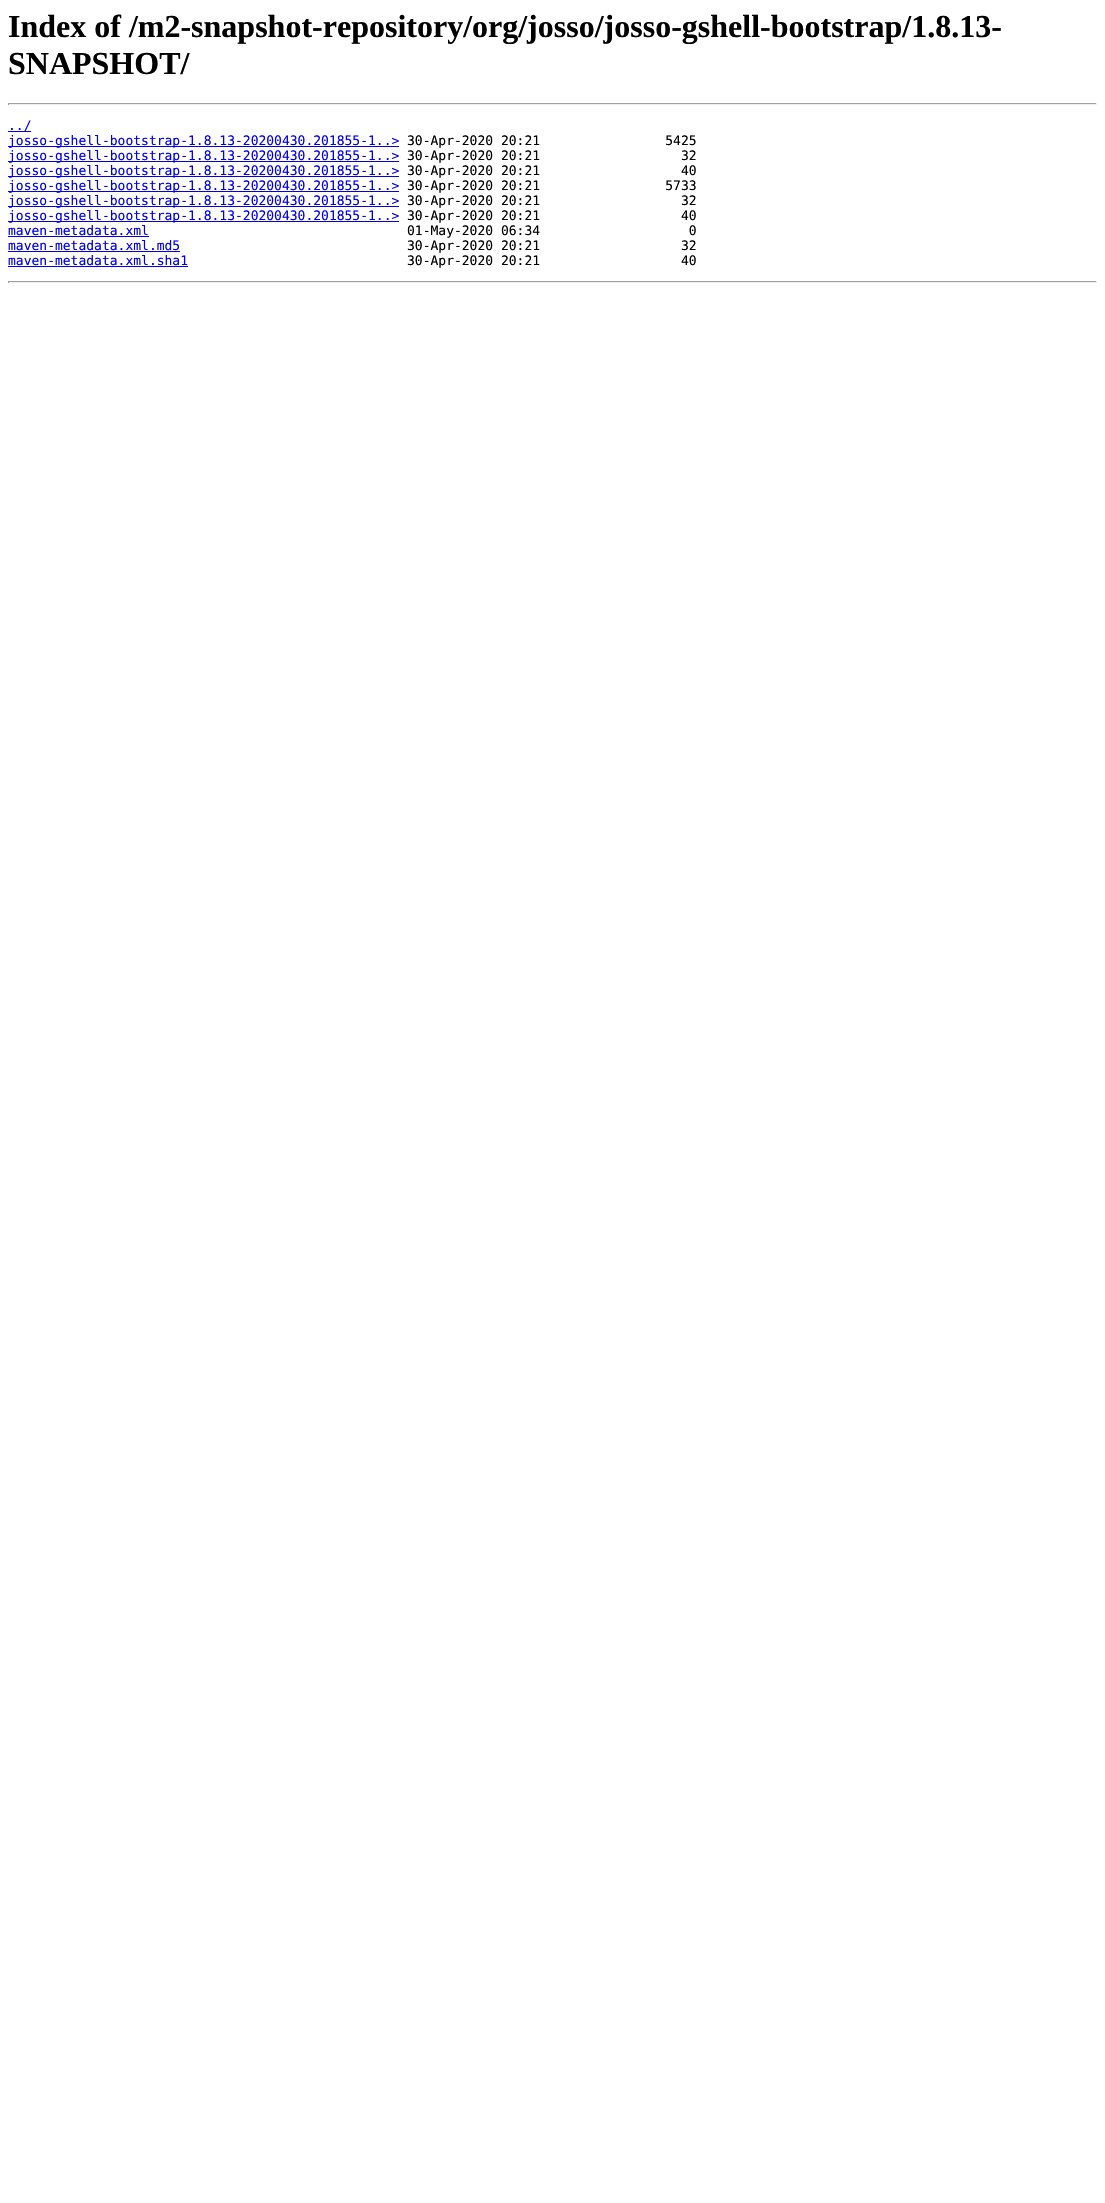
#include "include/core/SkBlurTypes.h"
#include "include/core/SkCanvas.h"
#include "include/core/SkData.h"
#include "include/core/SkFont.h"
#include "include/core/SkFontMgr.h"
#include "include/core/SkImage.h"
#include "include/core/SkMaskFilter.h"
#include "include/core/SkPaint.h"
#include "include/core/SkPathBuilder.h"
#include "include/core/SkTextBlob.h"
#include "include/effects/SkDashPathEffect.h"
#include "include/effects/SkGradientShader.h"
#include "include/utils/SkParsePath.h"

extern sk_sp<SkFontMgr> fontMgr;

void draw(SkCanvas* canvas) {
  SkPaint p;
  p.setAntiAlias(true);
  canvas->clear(SK_ColorWHITE);
  p.setColor(SkColorSetRGB(159, 159, 159));
  canvas->drawRect(SkRect::MakeLTRB(8, 103, 1097, 104), p);
  p.setColor(SkColorSetRGB(238, 238, 238));
  canvas->drawRect(SkRect::MakeLTRB(1096, 103, 1097, 105), p);
  canvas->drawRect(SkRect::MakeLTRB(8, 104, 1097, 105), p);
  p.setColor(SkColorSetRGB(159, 159, 159));
  canvas->drawRect(SkRect::MakeLTRB(8, 103, 9, 105), p);
  p.setColor(SkColorSetRGB(0, 0, 238));
  canvas->drawRect(SkRect::MakeLTRB(8, 131, 31, 132), p);
  canvas->drawRect(SkRect::MakeLTRB(8, 146, 399, 147), p);
  canvas->drawRect(SkRect::MakeLTRB(8, 161, 399, 162), p);
  canvas->drawRect(SkRect::MakeLTRB(8, 176, 399, 177), p);
  canvas->drawRect(SkRect::MakeLTRB(8, 191, 399, 192), p);
  canvas->drawRect(SkRect::MakeLTRB(8, 206, 399, 207), p);
  canvas->drawRect(SkRect::MakeLTRB(8, 221, 399, 222), p);
  canvas->drawRect(SkRect::MakeLTRB(8, 236, 149, 237), p);
  canvas->drawRect(SkRect::MakeLTRB(8, 251, 180, 252), p);
  canvas->drawRect(SkRect::MakeLTRB(8, 266, 188, 267), p);
  p.setColor(SkColorSetRGB(159, 159, 159));
  canvas->drawRect(SkRect::MakeLTRB(8, 281, 1097, 282), p);
  p.setColor(SkColorSetRGB(238, 238, 238));
  canvas->drawRect(SkRect::MakeLTRB(1096, 281, 1097, 283), p);
  canvas->drawRect(SkRect::MakeLTRB(8, 282, 1097, 283), p);
  p.setColor(SkColorSetRGB(159, 159, 159));
  canvas->drawRect(SkRect::MakeLTRB(8, 281, 9, 283), p);
  SkFont font1(fontMgr->matchFamilyStyle("Liberation Serif", SkFontStyle::Bold()), 32);
  font1.setSubpixel(true);
  p.setColor(SK_ColorBLACK);
  canvas->drawString("Index of /m2-snapshot-repository/org/josso/josso-gshell-bootstrap/1.8.13-", 8, 37, font1, p);
  canvas->drawString("SNAPSHOT/", 8, 74, font1, p);
  SkFont font2(fontMgr->matchFamilyStyle("DejaVu Sans Mono", SkFontStyle::Normal()), 13);
  font2.setSubpixel(true);
  p.setColor(SkColorSetRGB(0, 0, 238));
  canvas->drawString("../", 8, 130, font2, p);
  canvas->drawString("josso-gshell-bootstrap-1.8.13-20200430.201855-1..>", 8, 145, font2, p);
  p.setColor(SK_ColorBLACK);
  canvas->drawString("30-Apr-2020 20:21                5425", 407, 145, font2, p);
  p.setColor(SkColorSetRGB(0, 0, 238));
  canvas->drawString("josso-gshell-bootstrap-1.8.13-20200430.201855-1..>", 8, 160, font2, p);
  p.setColor(SK_ColorBLACK);
  canvas->drawString("30-Apr-2020 20:21                  32", 407, 160, font2, p);
  p.setColor(SkColorSetRGB(0, 0, 238));
  canvas->drawString("josso-gshell-bootstrap-1.8.13-20200430.201855-1..>", 8, 175, font2, p);
  p.setColor(SK_ColorBLACK);
  canvas->drawString("30-Apr-2020 20:21                  40", 407, 175, font2, p);
  p.setColor(SkColorSetRGB(0, 0, 238));
  canvas->drawString("josso-gshell-bootstrap-1.8.13-20200430.201855-1..>", 8, 190, font2, p);
  p.setColor(SK_ColorBLACK);
  canvas->drawString("30-Apr-2020 20:21                5733", 407, 190, font2, p);
  p.setColor(SkColorSetRGB(0, 0, 238));
  canvas->drawString("josso-gshell-bootstrap-1.8.13-20200430.201855-1..>", 8, 205, font2, p);
  p.setColor(SK_ColorBLACK);
  canvas->drawString("30-Apr-2020 20:21                  32", 407, 205, font2, p);
  p.setColor(SkColorSetRGB(0, 0, 238));
  canvas->drawString("josso-gshell-bootstrap-1.8.13-20200430.201855-1..>", 8, 220, font2, p);
  p.setColor(SK_ColorBLACK);
  canvas->drawString("30-Apr-2020 20:21                  40", 407, 220, font2, p);
  p.setColor(SkColorSetRGB(0, 0, 238));
  canvas->drawString("maven-metadata.xml", 8, 235, font2, p);
  p.setColor(SK_ColorBLACK);
  canvas->drawString("01-May-2020 06:34                   0", 407, 235, font2, p);
  p.setColor(SkColorSetRGB(0, 0, 238));
  canvas->drawString("maven-metadata.xml.md5", 8, 250, font2, p);
  p.setColor(SK_ColorBLACK);
  canvas->drawString("30-Apr-2020 20:21                  32", 407, 250, font2, p);
  p.setColor(SkColorSetRGB(0, 0, 238));
  canvas->drawString("maven-metadata.xml.sha1", 8, 265, font2, p);
  p.setColor(SK_ColorBLACK);
  canvas->drawString("30-Apr-2020 20:21                  40", 407, 265, font2, p);
}
